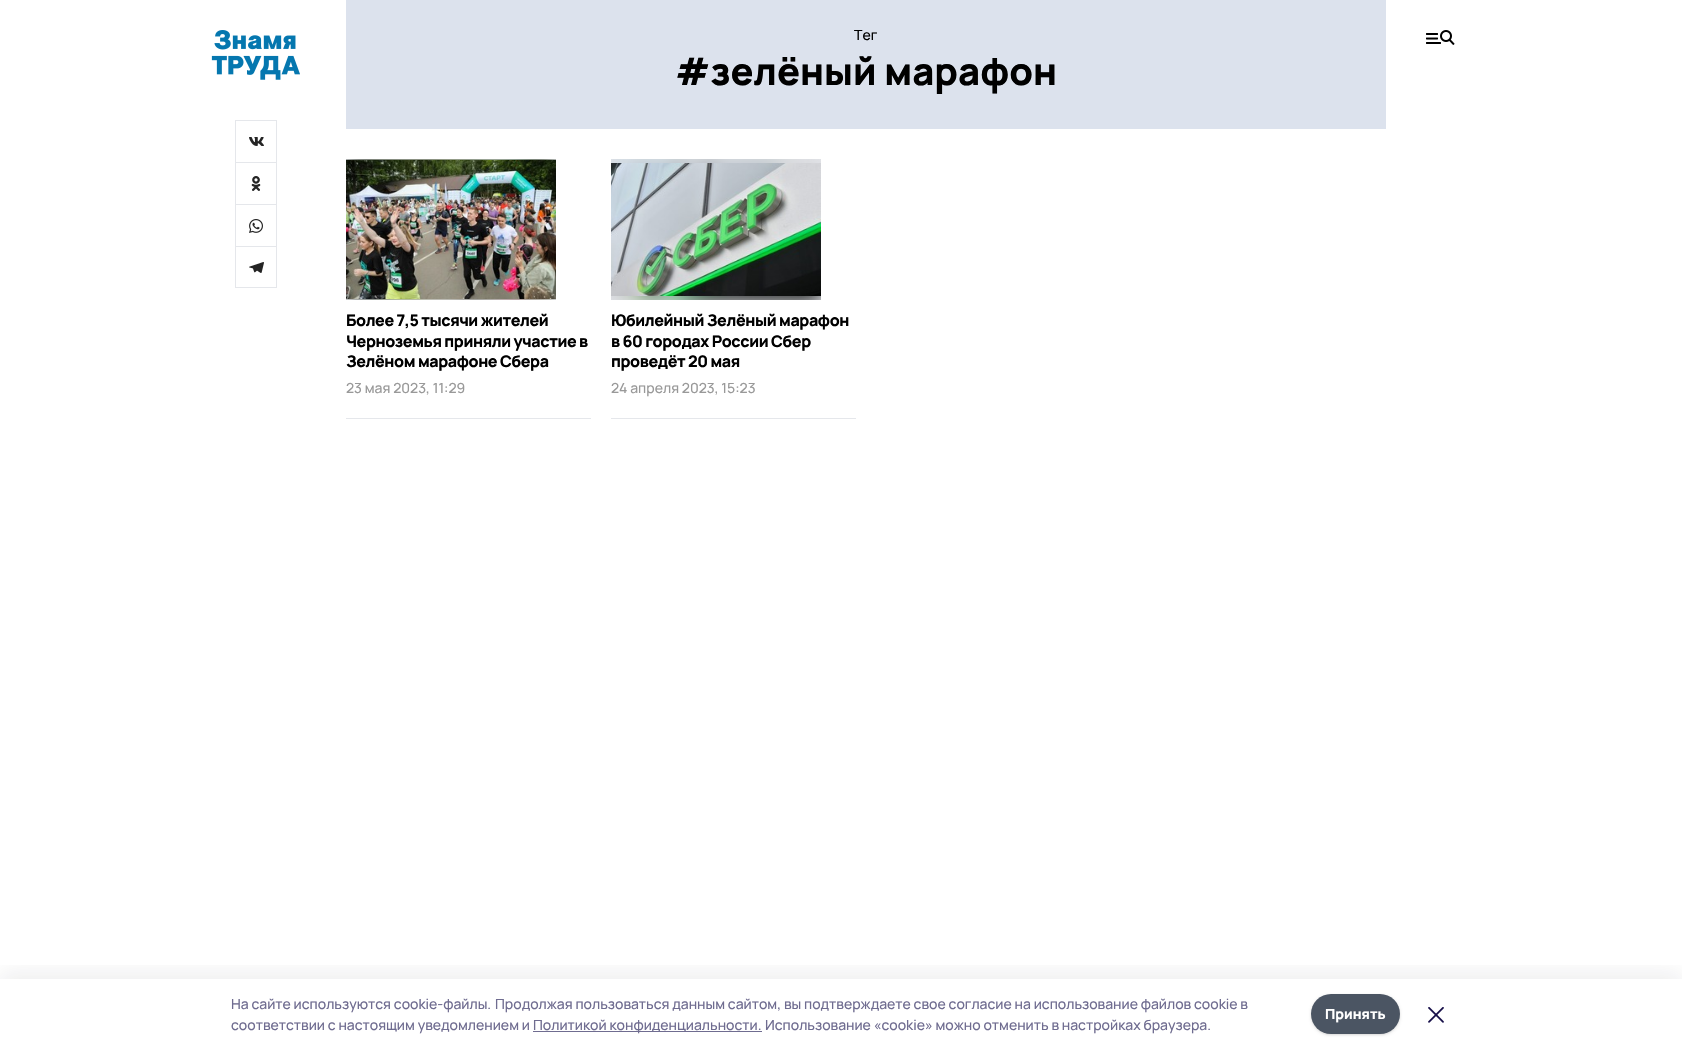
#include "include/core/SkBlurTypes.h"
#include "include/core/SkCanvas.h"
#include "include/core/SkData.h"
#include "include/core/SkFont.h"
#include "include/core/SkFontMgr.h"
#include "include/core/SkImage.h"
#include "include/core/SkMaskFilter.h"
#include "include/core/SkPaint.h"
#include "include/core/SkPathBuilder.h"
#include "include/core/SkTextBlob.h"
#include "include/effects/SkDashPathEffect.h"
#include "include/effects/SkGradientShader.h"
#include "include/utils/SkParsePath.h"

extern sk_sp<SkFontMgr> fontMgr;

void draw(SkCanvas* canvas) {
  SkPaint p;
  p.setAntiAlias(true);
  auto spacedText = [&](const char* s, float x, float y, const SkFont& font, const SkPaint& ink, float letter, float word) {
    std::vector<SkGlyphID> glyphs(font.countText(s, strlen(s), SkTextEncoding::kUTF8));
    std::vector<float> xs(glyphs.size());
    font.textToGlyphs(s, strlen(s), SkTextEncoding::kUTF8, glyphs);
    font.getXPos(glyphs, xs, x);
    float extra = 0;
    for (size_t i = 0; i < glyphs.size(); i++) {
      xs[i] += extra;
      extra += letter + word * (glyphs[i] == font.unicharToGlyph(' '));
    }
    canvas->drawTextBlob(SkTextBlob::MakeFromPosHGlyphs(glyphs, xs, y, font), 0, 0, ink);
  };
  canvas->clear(SK_ColorWHITE);
  canvas->drawImageRect(SkImages::DeferredFromEncodedData(SkData::MakeFromFileName("images/1.png")), SkRect::MakeLTRB(211, 30, 300, 80), SkSamplingOptions());
  canvas->drawImageRect(SkImages::DeferredFromEncodedData(SkData::MakeFromFileName("images/2.png")), SkRect::MakeLTRB(249, 137, 264, 146), SkSamplingOptions());
  p.setColor(SkColorSetRGB(229, 231, 235));
  canvas->drawRect(SkRect::MakeLTRB(235, 120, 277, 121), p);
  canvas->drawRect(SkRect::MakeLTRB(276, 120, 277, 162), p);
  canvas->drawRect(SkRect::MakeLTRB(235, 120, 236, 162), p);
  canvas->drawImageRect(SkImages::DeferredFromEncodedData(SkData::MakeFromFileName("images/3.png")), SkRect::MakeLTRB(251, 176, 261, 191), SkSamplingOptions());
  canvas->drawRect(SkRect::MakeLTRB(235, 162, 277, 163), p);
  canvas->drawRect(SkRect::MakeLTRB(276, 162, 277, 204), p);
  canvas->drawRect(SkRect::MakeLTRB(235, 162, 236, 204), p);
  canvas->drawImageRect(SkImages::DeferredFromEncodedData(SkData::MakeFromFileName("images/4.png")), SkRect::MakeLTRB(249, 219, 263, 233), SkSamplingOptions());
  canvas->drawRect(SkRect::MakeLTRB(235, 204, 277, 205), p);
  canvas->drawRect(SkRect::MakeLTRB(276, 204, 277, 246), p);
  canvas->drawRect(SkRect::MakeLTRB(235, 204, 236, 246), p);
  canvas->drawImageRect(SkImages::DeferredFromEncodedData(SkData::MakeFromFileName("images/5.png")), SkRect::MakeLTRB(249, 262, 264, 273), SkSamplingOptions());
  p.setStyle(SkPaint::kStroke_Style);
  p.setStrokeWidth(1);
  canvas->drawRect(SkRect::MakeLTRB(235.5f, 246.5f, 276.5f, 287.5f), p);
  p.setStyle(SkPaint::kFill_Style);
  p.setColor(SkColorSetRGB(220, 226, 237));
  canvas->drawRect(SkRect::MakeLTRB(346, 0, 1386, 129), p);
  p.setColor(SkColorSetRGB(229, 231, 235));
  canvas->drawRect(SkRect::MakeLTRB(346, 418, 591, 419), p);
  canvas->drawRect(SkRect::MakeLTRB(346, 159, 556, 300), p);
  canvas->drawImageRect(SkImages::DeferredFromEncodedData(SkData::MakeFromFileName("images/6.png")), SkRect::MakeLTRB(346, 159, 556, 300), SkSamplingOptions());
  canvas->drawImageRect(SkImages::DeferredFromEncodedData(SkData::MakeFromFileName("images/7.png")), SkRect::MakeLTRB(346, 160, 556, 299), SkSamplingOptions());
  canvas->drawRect(SkRect::MakeLTRB(611, 418, 856, 419), p);
  canvas->drawRect(SkRect::MakeLTRB(611, 159, 821, 300), p);
  canvas->drawImageRect(SkImages::DeferredFromEncodedData(SkData::MakeFromFileName("images/8.png")), SkRect::MakeLTRB(611, 159, 821, 300), SkSamplingOptions());
  canvas->drawImageRect(SkImages::DeferredFromEncodedData(SkData::MakeFromFileName("images/9.png")), SkRect::MakeLTRB(611, 163, 821, 296), SkSamplingOptions());
  canvas->drawImageRect(SkImages::DeferredFromEncodedData(SkData::MakeFromFileName("images/10.png")), SkRect::MakeLTRB(1426, 30, 1455, 45), SkSamplingOptions());
  canvas->save();
  canvas->clipRect(SkRect::MakeLTRB(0, 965, 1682, 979));
  p.setColor(SkColorSetARGB(20, 20, 20, 43));
  p.setMaskFilter(SkMaskFilter::MakeBlur(kNormal_SkBlurStyle, 11.5f));
  canvas->drawRect(SkRect::MakeLTRB(0, 973, 1682, 1043), p);
  p.setMaskFilter(nullptr);
  canvas->restore();
  p.setColor(SkColorSetRGB(111, 108, 144));
  canvas->drawRect(SkRect::MakeLTRB(533, 1031, 762, 1032), p);
  p.setColor(SkColorSetARGB(15, 0, 0, 0));
  p.setMaskFilter(SkMaskFilter::MakeBlur(kNormal_SkBlurStyle, 1));
  canvas->drawRoundRect(SkRect::MakeLTRB(1311, 995, 1400, 1035), 20, 20, p);
  p.setMaskFilter(nullptr);
  p.setColor(SkColorSetARGB(26, 0, 0, 0));
  p.setMaskFilter(SkMaskFilter::MakeBlur(kNormal_SkBlurStyle, 1.5f));
  canvas->drawRoundRect(SkRect::MakeLTRB(1311, 995, 1400, 1035), 20, 20, p);
  p.setMaskFilter(nullptr);
  p.setColor(SkColorSetRGB(75, 85, 99));
  canvas->drawRoundRect(SkRect::MakeLTRB(1311, 994, 1400, 1034), 20, 20, p);
  canvas->drawImageRect(SkImages::DeferredFromEncodedData(SkData::MakeFromFileName("images/11.png")), SkRect::MakeLTRB(1428, 1007, 1444, 1023), SkSamplingOptions());
  SkFont font1(fontMgr->matchFamilyStyle("Manrope", SkFontStyle(500, SkFontStyle::kNormal_Width, SkFontStyle::kUpright_Slant)), 14);
  font1.setSubpixel(true);
  p.setColor(SK_ColorBLACK);
  canvas->drawString("Тег", 854, 40, font1, p);
  SkFont font2(fontMgr->matchFamilyStyle("Manrope", SkFontStyle(800, SkFontStyle::kNormal_Width, SkFontStyle::kUpright_Slant)), 38);
  font2.setSubpixel(true);
  canvas->drawString("#зелёный марафон", 675, 85, font2, p);
  SkFont font3(fontMgr->matchFamilyStyle("Manrope", SkFontStyle(800, SkFontStyle::kNormal_Width, SkFontStyle::kUpright_Slant)), 16);
  font3.setSubpixel(true);
  spacedText("Более 7,5 тысячи жителей", 346, 326, font3, p, -0.4f, 0);
  spacedText("Черноземья приняли участие в", 346, 347, font3, p, -0.4f, 0);
  spacedText("Зелёном марафоне Сбера", 346, 367, font3, p, -0.4f, 0);
  p.setColor(SkColorSetRGB(153, 153, 153));
  canvas->drawString("23 мая 2023, 11:29", 346, 393, font1, p);
  p.setColor(SK_ColorBLACK);
  spacedText("Юбилейный Зелёный марафон", 611, 326, font3, p, -0.4f, 0);
  spacedText("в 60 городах России Сбер", 611, 347, font3, p, -0.4f, 0);
  spacedText("проведёт 20 мая", 611, 367, font3, p, -0.4f, 0);
  p.setColor(SkColorSetRGB(153, 153, 153));
  canvas->drawString("24 апреля 2023, 15:23", 611, 393, font1, p);
  p.setColor(SkColorSetRGB(111, 108, 144));
  canvas->drawString("На сайте используются cookie-файлы.", 231, 1009, font1, p);
  canvas->drawString("Продолжая пользоваться данным сайтом, вы подтверждаете свое согласие на использование файлов cookie в", 495, 1009, font1, p);
  canvas->drawString("соответствии с настоящим уведомлением и", 231, 1030, font1, p);
  canvas->drawString("Политикой конфиденциальности.", 533, 1030, font1, p);
  canvas->drawString("Использование «cookie» можно отменить в настройках браузера.", 765, 1030, font1, p);
  SkFont font4(fontMgr->matchFamilyStyle("Manrope", SkFontStyle(800, SkFontStyle::kNormal_Width, SkFontStyle::kUpright_Slant)), 14);
  font4.setSubpixel(true);
  p.setColor(SK_ColorWHITE);
  canvas->drawString("Принять", 1325, 1019, font4, p);
}
